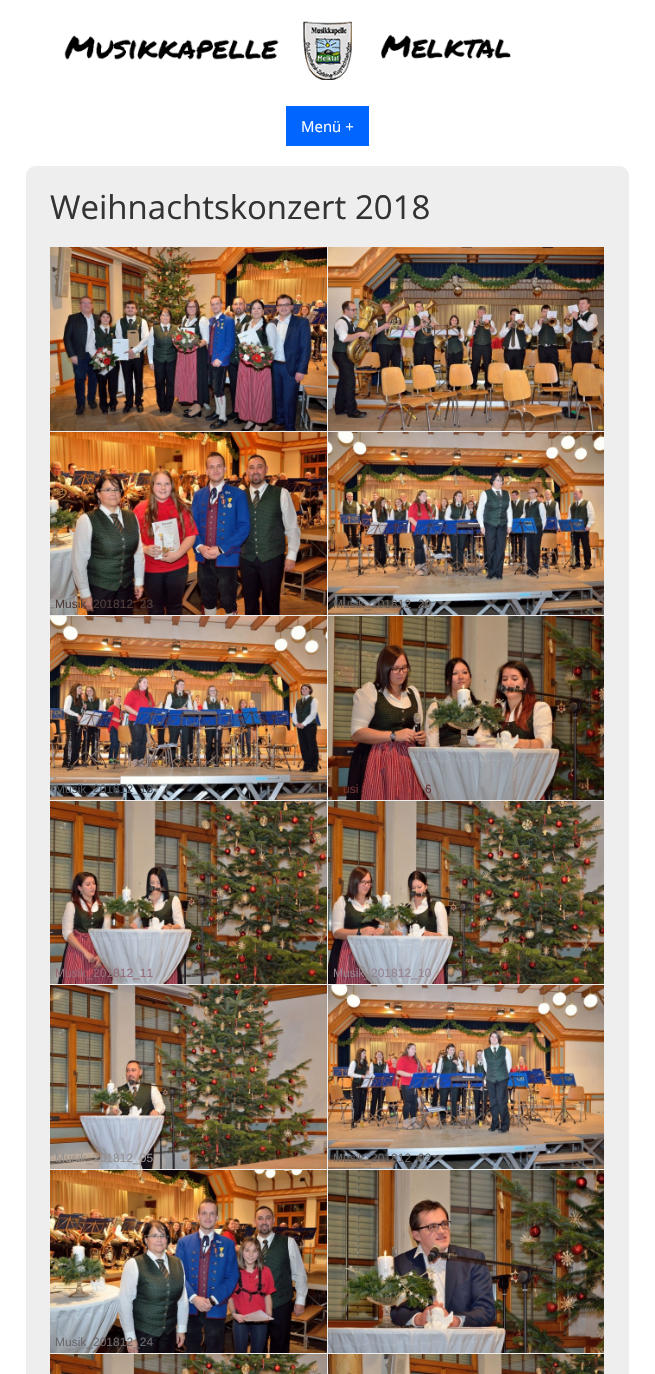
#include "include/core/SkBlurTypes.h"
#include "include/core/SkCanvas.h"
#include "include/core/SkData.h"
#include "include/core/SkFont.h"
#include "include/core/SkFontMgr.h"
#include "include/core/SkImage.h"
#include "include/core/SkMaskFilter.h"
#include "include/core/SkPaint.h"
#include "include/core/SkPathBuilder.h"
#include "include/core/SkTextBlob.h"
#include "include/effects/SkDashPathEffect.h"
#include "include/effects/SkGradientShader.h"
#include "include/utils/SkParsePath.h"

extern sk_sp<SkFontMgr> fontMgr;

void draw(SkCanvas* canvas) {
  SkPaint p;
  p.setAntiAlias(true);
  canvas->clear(SK_ColorWHITE);
  canvas->drawImageRect(SkImages::DeferredFromEncodedData(SkData::MakeFromFileName("images/1.png")), SkRect::MakeLTRB(64, 21, 511, 80), SkSamplingOptions());
  p.setColor(SkColorSetRGB(0, 102, 255));
  canvas->drawRect(SkRect::MakeLTRB(286, 106, 369, 146), p);
  p.setColor(SkColorSetRGB(238, 238, 238));
  canvas->drawPath(SkPathBuilder().moveTo(36, 166).lineTo(619, 166).cubicTo(624.5f, 166, 629, 170.5f, 629, 176).lineTo(629, 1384).lineTo(26, 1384).lineTo(26, 176).cubicTo(26, 170.5f, 30.5f, 166, 36, 166).close().detach(), p);
  canvas->drawImageRect(SkImages::DeferredFromEncodedData(SkData::MakeFromFileName("images/2.png")), SkRect::MakeLTRB(50, 247, 327, 431), SkSamplingOptions());
  canvas->drawImageRect(SkImages::DeferredFromEncodedData(SkData::MakeFromFileName("images/3.png")), SkRect::MakeLTRB(328, 247, 604, 431), SkSamplingOptions());
  canvas->drawImageRect(SkImages::DeferredFromEncodedData(SkData::MakeFromFileName("images/4.png")), SkRect::MakeLTRB(50, 432, 327, 615), SkSamplingOptions());
  canvas->drawImageRect(SkImages::DeferredFromEncodedData(SkData::MakeFromFileName("images/5.png")), SkRect::MakeLTRB(328, 432, 604, 615), SkSamplingOptions());
  canvas->drawImageRect(SkImages::DeferredFromEncodedData(SkData::MakeFromFileName("images/6.png")), SkRect::MakeLTRB(50, 616, 327, 800), SkSamplingOptions());
  canvas->drawImageRect(SkImages::DeferredFromEncodedData(SkData::MakeFromFileName("images/7.png")), SkRect::MakeLTRB(328, 616, 604, 800), SkSamplingOptions());
  canvas->drawImageRect(SkImages::DeferredFromEncodedData(SkData::MakeFromFileName("images/8.png")), SkRect::MakeLTRB(50, 801, 327, 984), SkSamplingOptions());
  canvas->drawImageRect(SkImages::DeferredFromEncodedData(SkData::MakeFromFileName("images/9.png")), SkRect::MakeLTRB(328, 801, 604, 984), SkSamplingOptions());
  canvas->drawImageRect(SkImages::DeferredFromEncodedData(SkData::MakeFromFileName("images/10.png")), SkRect::MakeLTRB(50, 985, 327, 1169), SkSamplingOptions());
  canvas->drawImageRect(SkImages::DeferredFromEncodedData(SkData::MakeFromFileName("images/11.png")), SkRect::MakeLTRB(328, 985, 604, 1169), SkSamplingOptions());
  canvas->drawImageRect(SkImages::DeferredFromEncodedData(SkData::MakeFromFileName("images/12.png")), SkRect::MakeLTRB(50, 1170, 327, 1353), SkSamplingOptions());
  canvas->drawImageRect(SkImages::DeferredFromEncodedData(SkData::MakeFromFileName("images/13.png")), SkRect::MakeLTRB(328, 1170, 604, 1353), SkSamplingOptions());
  canvas->drawImageRect(SkImages::DeferredFromEncodedData(SkData::MakeFromFileName("images/14.png")), SkRect::MakeLTRB(50, 1354, 327, 1374), SkSamplingOptions());
  canvas->drawImageRect(SkImages::DeferredFromEncodedData(SkData::MakeFromFileName("images/15.png")), SkRect::MakeLTRB(328, 1354, 604, 1374), SkSamplingOptions());
  SkFont font1(fontMgr->matchFamilyStyle("Open Sans", SkFontStyle::Normal()), 15);
  font1.setSubpixel(true);
  p.setColor(SK_ColorWHITE);
  canvas->drawString("Menü +", 301, 132, font1, p);
  SkFont font2(fontMgr->matchFamilyStyle("Open Sans", SkFontStyle::Normal()), 33);
  font2.setSubpixel(true);
  p.setColor(SkColorSetRGB(51, 51, 51));
  canvas->drawString("Weihnachtskonzert 2018", 50, 219, font2, p);
  SkFont font3(fontMgr->matchFamilyStyle("Liberation Sans", SkFontStyle::Normal()), 12);
  font3.setSubpixel(true);
  p.setColor(SkColorSetRGB(79, 62, 59));
  canvas->drawString("Musik_201812_23", 55, 608, font3, p);
  p.setColor(SkColorSetRGB(102, 94, 89));
  canvas->drawString("Musik_201812_20", 333, 608, font3, p);
  p.setColor(SkColorSetRGB(82, 88, 95));
  canvas->drawString("Musik_201812_18", 55, 793, font3, p);
  p.setColor(SkColorSetRGB(112, 51, 52));
  canvas->drawString("usi", 343, 793, font3, p);
  canvas->drawString("6", 425, 793, font3, p);
  p.setColor(SkColorSetRGB(149, 109, 120));
  canvas->drawString("Musik_201812_11", 55, 977, font3, p);
  p.setColor(SkColorSetRGB(151, 131, 143));
  canvas->drawString("Musik_201812_10", 333, 977, font3, p);
  p.setColor(SkColorSetRGB(150, 144, 142));
  canvas->drawString("Musik_201812_05", 55, 1162, font3, p);
  p.setColor(SkColorSetRGB(104, 100, 99));
  canvas->drawString("Musik_201812_02", 333, 1162, font3, p);
  p.setColor(SkColorSetRGB(106, 104, 108));
  canvas->drawString("Musik_201812_24", 55, 1346, font3, p);
}
